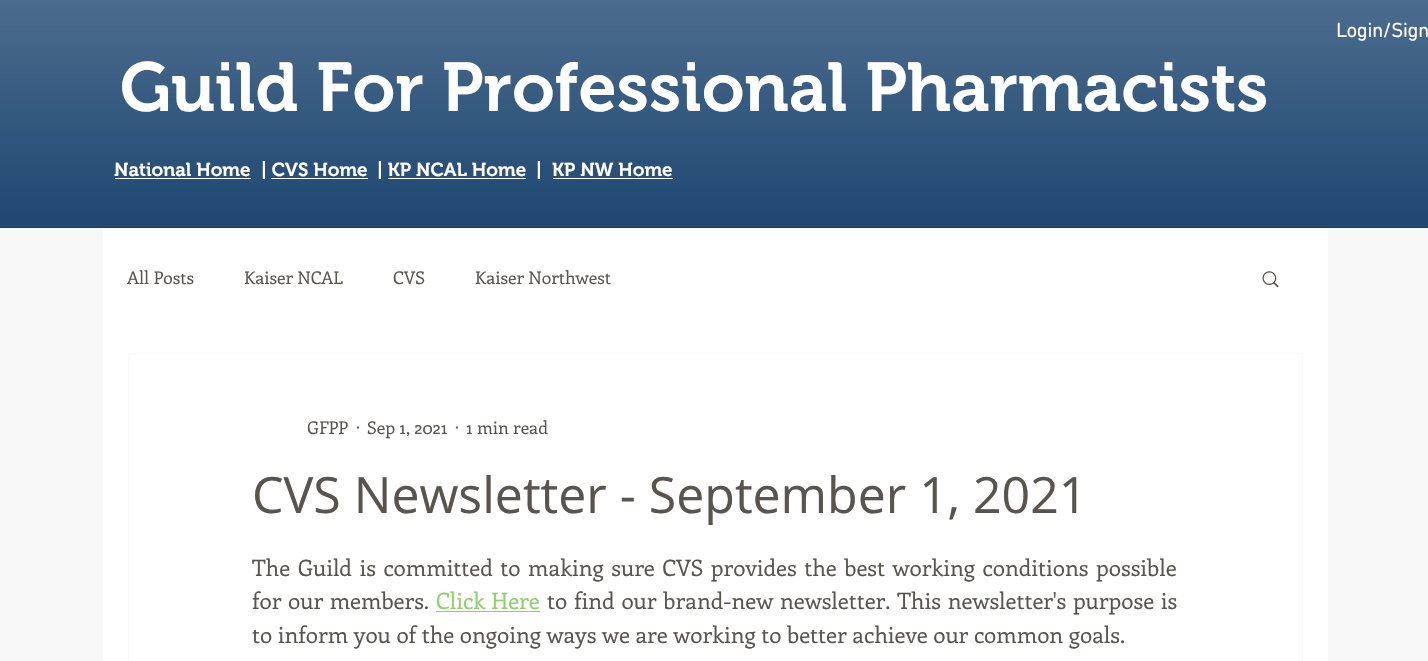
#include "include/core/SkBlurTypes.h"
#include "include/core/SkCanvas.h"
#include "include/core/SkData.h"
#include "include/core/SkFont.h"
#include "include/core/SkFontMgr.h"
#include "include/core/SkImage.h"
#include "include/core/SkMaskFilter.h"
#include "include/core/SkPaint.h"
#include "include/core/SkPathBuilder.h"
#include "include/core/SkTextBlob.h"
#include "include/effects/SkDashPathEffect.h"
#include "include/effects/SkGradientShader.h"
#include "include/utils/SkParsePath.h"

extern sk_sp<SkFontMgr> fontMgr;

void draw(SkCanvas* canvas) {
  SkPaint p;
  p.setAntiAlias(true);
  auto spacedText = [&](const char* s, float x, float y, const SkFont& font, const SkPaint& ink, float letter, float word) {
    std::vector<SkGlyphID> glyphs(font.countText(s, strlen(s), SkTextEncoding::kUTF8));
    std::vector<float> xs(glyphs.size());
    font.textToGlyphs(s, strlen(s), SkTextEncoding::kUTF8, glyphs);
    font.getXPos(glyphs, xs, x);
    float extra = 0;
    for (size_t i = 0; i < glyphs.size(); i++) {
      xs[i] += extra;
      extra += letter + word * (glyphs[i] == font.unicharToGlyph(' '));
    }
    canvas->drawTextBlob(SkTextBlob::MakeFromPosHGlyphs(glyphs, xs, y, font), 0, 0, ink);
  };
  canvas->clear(SkColorSetRGB(248, 248, 248));
  p.setColor(SkColorSetRGB(12, 56, 101));
  canvas->drawRect(SkRect::MakeLTRB(0, 0, 1428, 228), p);
  canvas->drawImageRect(SkImages::DeferredFromEncodedData(SkData::MakeFromFileName("images/1.png")), SkRect::MakeLTRB(0, 0, 1428, 228), SkSamplingOptions());
  p.setColor(SK_ColorWHITE);
  canvas->drawRect(SkRect::MakeLTRB(115, 178, 251, 179), p);
  canvas->drawRect(SkRect::MakeLTRB(271, 178, 368, 179), p);
  canvas->drawRect(SkRect::MakeLTRB(388, 178, 526, 179), p);
  canvas->drawRect(SkRect::MakeLTRB(553, 178, 673, 179), p);
  canvas->drawRect(SkRect::MakeLTRB(103, 228, 1328, 661), p);
  canvas->drawImageRect(SkImages::DeferredFromEncodedData(SkData::MakeFromFileName("images/2.png")), SkRect::MakeLTRB(1262, 271, 1279, 288), SkSamplingOptions());
  p.setStyle(SkPaint::kStroke_Style);
  p.setStrokeWidth(1);
  p.setColor(SkColorSetRGB(250, 250, 250));
  canvas->drawRect(SkRect::MakeLTRB(128.5f, 353.5f, 1302.5f, 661.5f), p);
  p.setStyle(SkPaint::kFill_Style);
  p.setColor(SkColorSetRGB(143, 209, 105));
  canvas->drawRect(SkRect::MakeLTRB(436, 611, 540, 612), p);
  SkFont font1(fontMgr->matchFamilyStyle("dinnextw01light", SkFontStyle::Bold()), 20);
  font1.setSubpixel(true);
  p.setColor(SK_ColorWHITE);
  canvas->drawString("Login/Sign", 1336, 37, font1, p);
  SkFont font2(fontMgr->matchFamilyStyle("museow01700", SkFontStyle(600, SkFontStyle::kNormal_Width, SkFontStyle::kUpright_Slant)), 68.75f);
  font2.setSubpixel(true);
  canvas->drawString("Guild For Professional Pharmacists", 120, 111, font2, p);
  SkFont font3(fontMgr->matchFamilyStyle("museow01700", SkFontStyle(600, SkFontStyle::kNormal_Width, SkFontStyle::kUpright_Slant)), 18.75f);
  font3.setSubpixel(true);
  canvas->drawString("National Home", 114, 176, font3, p);
  canvas->drawString("| CVS Home", 261, 176, font3, p);
  canvas->drawString("| KP NCAL Home", 377, 176, font3, p);
  canvas->drawString("|", 536, 176, font3, p);
  canvas->drawString("KP NW Home", 552, 176, font3, p);
  SkFont font4(fontMgr->matchFamilyStyle("Enriqueta", SkFontStyle::Normal()), 17.5f);
  font4.setSubpixel(true);
  p.setColor(SkColorSetRGB(88, 85, 81));
  canvas->drawString("All Posts", 127, 284, font4, p);
  canvas->drawString("Kaiser NCAL", 244, 284, font4, p);
  canvas->drawString("CVS", 393, 284, font4, p);
  canvas->drawString("Kaiser Northwest", 475, 284, font4, p);
  canvas->drawString("GFPP", 307, 434, font4, p);
  canvas->drawString("·", 356, 434, font4, p);
  canvas->drawString("Sep 1, 2021", 367, 434, font4, p);
  canvas->drawString("·", 455, 434, font4, p);
  canvas->drawString("1 min read", 466, 434, font4, p);
  SkFont font5(fontMgr->matchFamilyStyle("Open Sans", SkFontStyle::Normal()), 50);
  font5.setSubpixel(true);
  canvas->drawString("CVS Newsletter - September 1, 2021", 252, 513, font5, p);
  SkFont font6(fontMgr->matchFamilyStyle("Enriqueta", SkFontStyle::Normal()), 22.5f);
  font6.setSubpixel(true);
  spacedText("The Guild is committed to making sure CVS provides the best working conditions possible", 252, 576, font6, p, 0, 2);
  spacedText("for our members.", 252, 609, font6, p, 0, 1);
  p.setColor(SkColorSetRGB(143, 209, 105));
  spacedText("Click Here", 436, 609, font6, p, 0, 1);
  p.setColor(SkColorSetRGB(88, 85, 81));
  spacedText("to find our brand-new newsletter. This newsletter's purpose is", 547, 609, font6, p, 0, 1.25f);
  canvas->drawString("to inform you of the ongoing ways we are working to better achieve our common goals.", 252, 643, font6, p);
}
